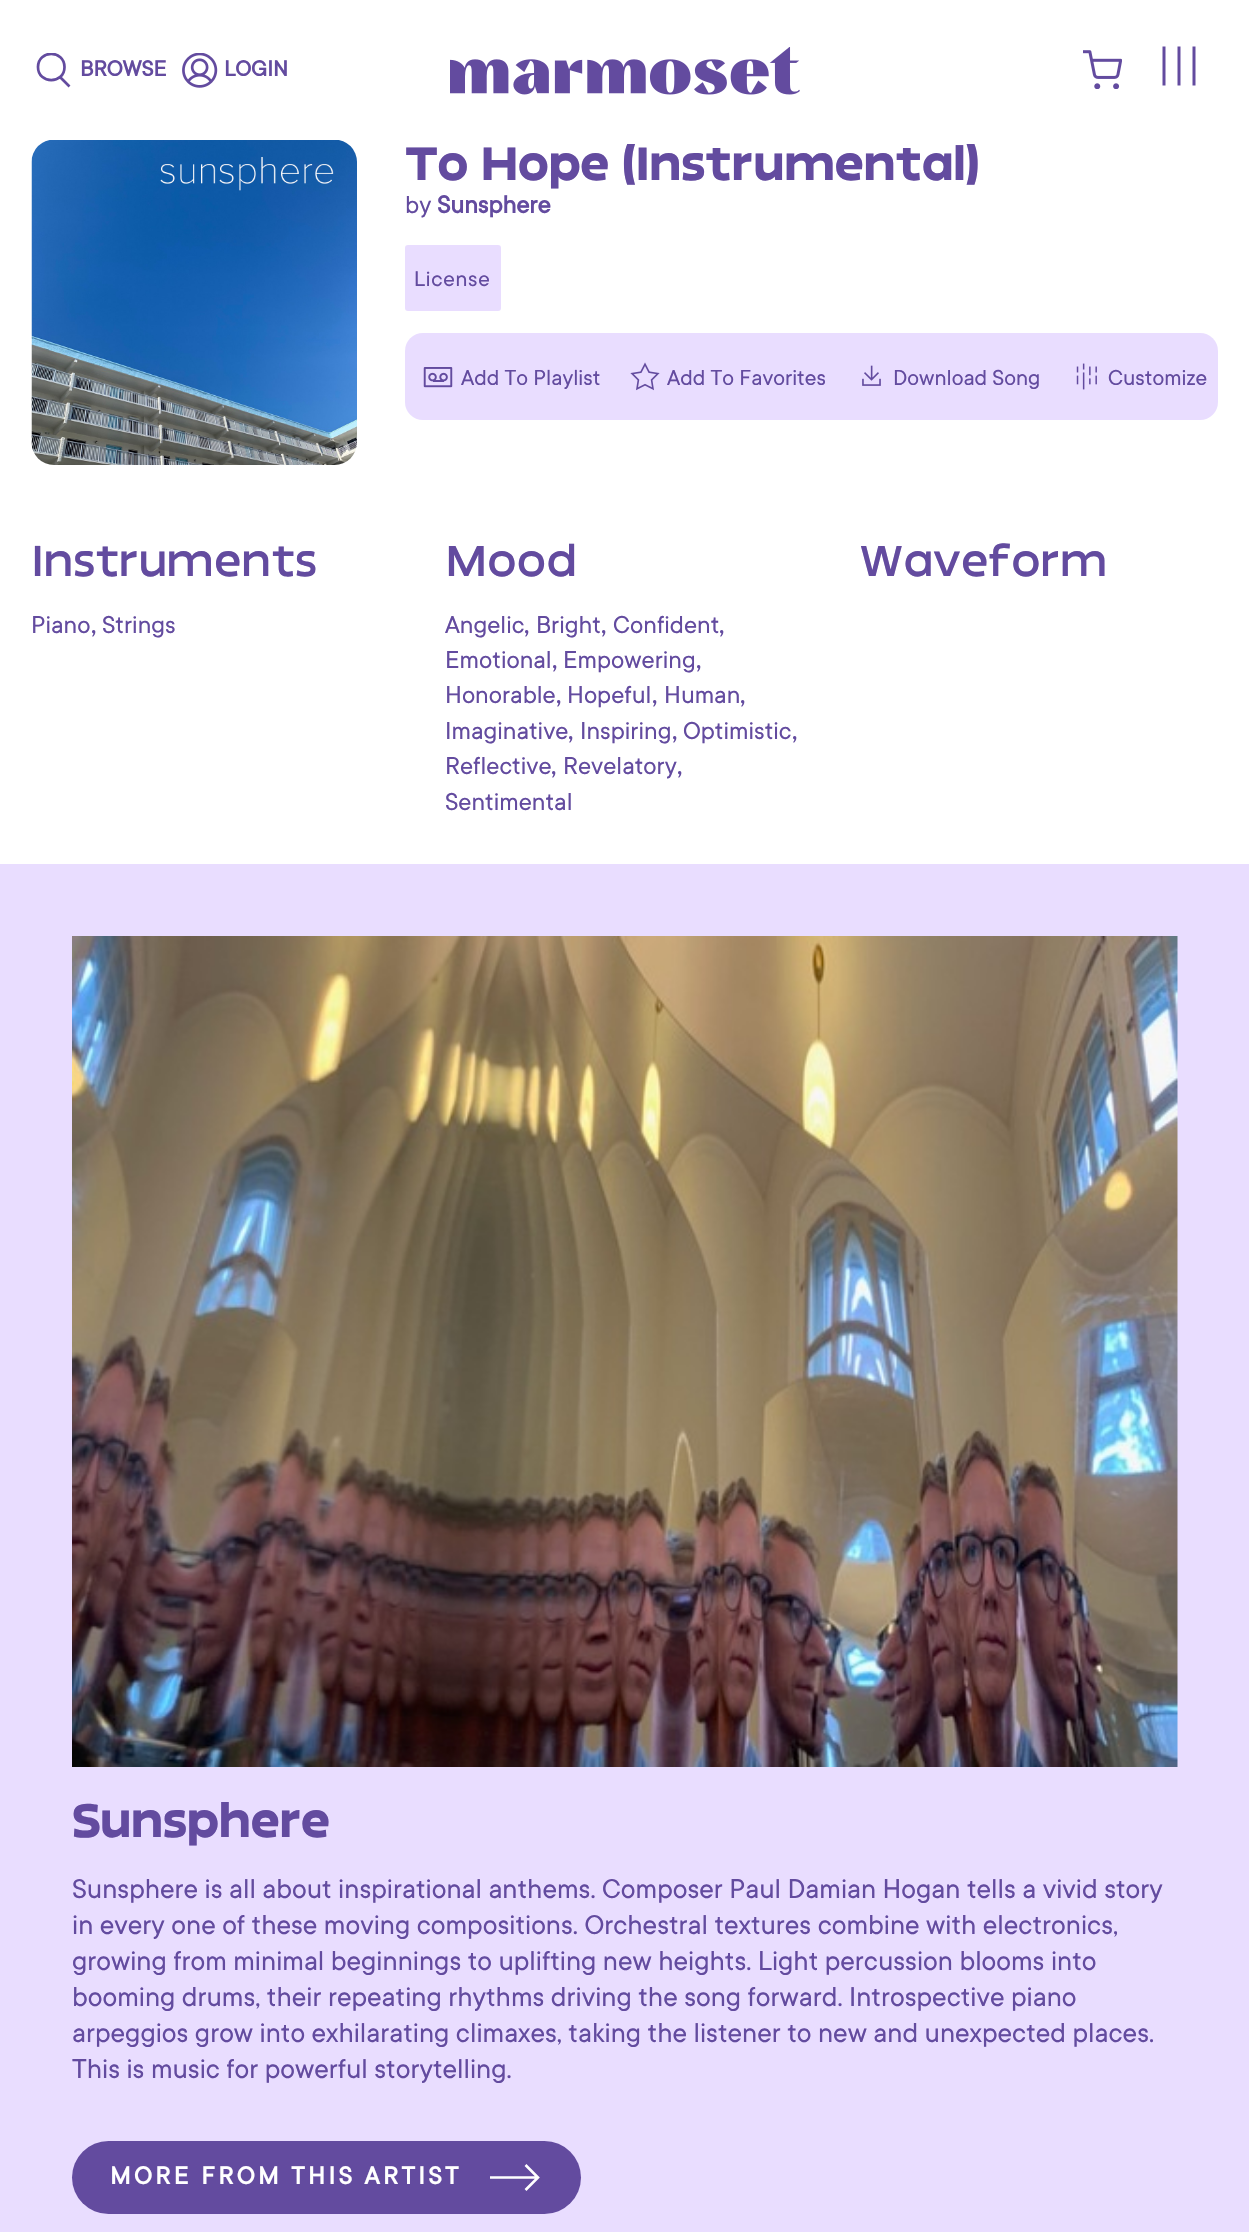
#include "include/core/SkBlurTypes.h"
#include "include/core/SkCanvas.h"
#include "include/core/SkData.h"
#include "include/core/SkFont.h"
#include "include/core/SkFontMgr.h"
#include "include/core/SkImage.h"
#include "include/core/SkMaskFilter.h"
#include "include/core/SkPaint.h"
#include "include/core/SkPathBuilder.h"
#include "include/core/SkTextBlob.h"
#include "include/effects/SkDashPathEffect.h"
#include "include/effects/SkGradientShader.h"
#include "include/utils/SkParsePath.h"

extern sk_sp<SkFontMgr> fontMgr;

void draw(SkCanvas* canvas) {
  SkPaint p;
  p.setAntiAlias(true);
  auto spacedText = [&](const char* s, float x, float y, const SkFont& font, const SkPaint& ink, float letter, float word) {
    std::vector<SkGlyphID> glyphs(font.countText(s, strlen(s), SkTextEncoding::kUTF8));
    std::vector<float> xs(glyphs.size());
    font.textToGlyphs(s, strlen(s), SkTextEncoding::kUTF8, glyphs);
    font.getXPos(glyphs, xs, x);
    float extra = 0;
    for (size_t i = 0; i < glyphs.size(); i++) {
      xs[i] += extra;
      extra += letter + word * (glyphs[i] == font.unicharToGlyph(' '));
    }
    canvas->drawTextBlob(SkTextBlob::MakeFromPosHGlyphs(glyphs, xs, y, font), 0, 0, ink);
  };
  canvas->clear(SK_ColorWHITE);
  canvas->save();
  canvas->clipRect(SkRect::MakeLTRB(36, 53, 72, 89));
  p.setStyle(SkPaint::kStroke_Style);
  p.setStrokeWidth(2.7f);
  p.setColor(SkColorSetRGB(99, 75, 159));
  canvas->drawPath(SkPathBuilder().moveTo(60, 77).lineTo(69.5f, 86.5f).moveTo(64.5f, 67).cubicTo(64.5f, 84.5f, 38, 84.5f, 38, 67).cubicTo(38, 49.5f, 64.5f, 49.5f, 64.5f, 67).close().detach(), p);
  canvas->restore();
  canvas->drawImageRect(SkImages::DeferredFromEncodedData(SkData::MakeFromFileName("images/1.png")), SkRect::MakeLTRB(182, 53, 218, 88), SkSamplingOptions());
  canvas->drawImageRect(SkImages::DeferredFromEncodedData(SkData::MakeFromFileName("images/2.png")), SkRect::MakeLTRB(450, 47, 800, 95), SkSamplingOptions());
  canvas->drawImageRect(SkImages::DeferredFromEncodedData(SkData::MakeFromFileName("images/3.png")), SkRect::MakeLTRB(1083, 50, 1122, 89), SkSamplingOptions());
  p.setStrokeWidth(3);
  canvas->drawPath(SkPathBuilder().moveTo(1164, 46.5f).lineTo(1164, 85.5f).moveTo(1179, 46.5f).lineTo(1179, 85.5f).moveTo(1194, 46.5f).lineTo(1194, 85.5f).detach(), p);
  canvas->drawImageRect(SkImages::DeferredFromEncodedData(SkData::MakeFromFileName("images/4.png")), SkRect::MakeLTRB(31, 140, 357, 465), SkSamplingOptions());
  p.setStyle(SkPaint::kFill_Style);
  p.setColor(SkColorSetRGB(233, 221, 255));
  canvas->drawRoundRect(SkRect::MakeLTRB(405, 245, 501, 311), 3, 3, p);
  canvas->drawRoundRect(SkRect::MakeLTRB(405, 333, 1218, 420), 18, 18, p);
  canvas->drawImageRect(SkImages::DeferredFromEncodedData(SkData::MakeFromFileName("images/5.png")), SkRect::MakeLTRB(423, 367, 453, 388), SkSamplingOptions());
  canvas->drawImageRect(SkImages::DeferredFromEncodedData(SkData::MakeFromFileName("images/6.png")), SkRect::MakeLTRB(630, 362, 660, 391), SkSamplingOptions());
  canvas->drawImageRect(SkImages::DeferredFromEncodedData(SkData::MakeFromFileName("images/7.png")), SkRect::MakeLTRB(862, 365, 881, 386), SkSamplingOptions());
  canvas->drawImageRect(SkImages::DeferredFromEncodedData(SkData::MakeFromFileName("images/8.png")), SkRect::MakeLTRB(1076, 363, 1097, 390), SkSamplingOptions());
  canvas->drawRect(SkRect::MakeLTRB(0, 864, 1249, 2232), p);
  canvas->drawImageRect(SkImages::DeferredFromEncodedData(SkData::MakeFromFileName("images/9.png")), SkRect::MakeLTRB(72, 936, 1178, 1767), SkSamplingOptions());
  p.setColor(SkColorSetRGB(99, 75, 159));
  canvas->drawRoundRect(SkRect::MakeLTRB(72, 2141, 581, 2214), 36.5f, 36.5f, p);
  p.setStyle(SkPaint::kStroke_Style);
  p.setStrokeWidth(2.6f);
  p.setColor(SK_ColorWHITE);
  canvas->drawPath(SkPathBuilder().moveTo(490, 2177.5f).lineTo(538, 2177.5f).moveTo(525.5f, 2190).lineTo(538, 2177.5f).lineTo(525.5f, 2165).detach(), p);
  SkFont font1(fontMgr->matchFamilyStyle("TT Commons", SkFontStyle::Bold()), 24);
  font1.setSubpixel(true);
  p.setStyle(SkPaint::kFill_Style);
  p.setColor(SkColorSetRGB(99, 75, 159));
  canvas->drawString("BROWSE", 80, 76, font1, p);
  canvas->drawString("LOGIN", 224, 76, font1, p);
  SkFont font2(fontMgr->matchFamilyStyle("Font", SkFontStyle::Bold()), 42);
  font2.setSubpixel(true);
  spacedText("To Hope (Instrumental)", 405, 180, font2, p, -0.8f, 0);
  SkFont font3(fontMgr->matchFamilyStyle("TT Commons", SkFontStyle::Normal()), 27);
  font3.setSubpixel(true);
  canvas->drawString("by", 405, 213, font3, p);
  SkFont font4(fontMgr->matchFamilyStyle("TT Commons", SkFontStyle::Bold()), 27);
  font4.setSubpixel(true);
  canvas->drawString("Sunsphere", 437, 213, font4, p);
  SkFont font5(fontMgr->matchFamilyStyle("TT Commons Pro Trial", SkFontStyle(500, SkFontStyle::kNormal_Width, SkFontStyle::kUpright_Slant)), 21);
  font5.setSubpixel(true);
  spacedText("License", 414, 286, font5, p, 0.75f, 0);
  SkFont font6(fontMgr->matchFamilyStyle("TT Commons", SkFontStyle::Normal()), 24);
  font6.setSubpixel(true);
  canvas->drawString("Add To Playlist", 461, 385, font6, p);
  canvas->drawString("Add To Favorites", 667, 385, font6, p);
  canvas->drawString("Download Song", 893, 385, font6, p);
  canvas->drawString("Customize", 1108, 385, font6, p);
  SkFont font7(fontMgr->matchFamilyStyle("Font", SkFontStyle::Normal()), 39);
  font7.setSubpixel(true);
  spacedText("Instruments", 31, 576, font7, p, -0.75f, 0);
  canvas->drawString("Piano", 31, 633, font3, p);
  SkFont font8(fontMgr->matchFamilyStyle("TT Commons Pro Trial", SkFontStyle(500, SkFontStyle::kNormal_Width, SkFontStyle::kUpright_Slant)), 27);
  font8.setSubpixel(true);
  canvas->drawString(",", 91, 633, font8, p);
  canvas->drawString("Strings", 102, 633, font3, p);
  spacedText("Mood", 445, 576, font7, p, -0.75f, 0);
  canvas->drawString("Angelic", 445, 633, font3, p);
  canvas->drawString(",", 524, 633, font8, p);
  canvas->drawString("Bright", 536, 633, font3, p);
  canvas->drawString(",", 601, 633, font8, p);
  canvas->drawString("Confident", 613, 633, font3, p);
  canvas->drawString(",", 719, 633, font8, p);
  canvas->drawString("Emotional", 445, 668, font3, p);
  canvas->drawString(",", 552, 668, font8, p);
  canvas->drawString("Empowering", 563, 668, font3, p);
  canvas->drawString(",", 696, 668, font8, p);
  canvas->drawString("Honorable", 445, 703, font3, p);
  canvas->drawString(",", 556, 703, font8, p);
  canvas->drawString("Hopeful", 567, 703, font3, p);
  canvas->drawString(",", 652, 703, font8, p);
  canvas->drawString("Human", 664, 703, font3, p);
  canvas->drawString(",", 740, 703, font8, p);
  canvas->drawString("Imaginative", 445, 739, font3, p);
  canvas->drawString(",", 568, 739, font8, p);
  canvas->drawString("Inspiring", 580, 739, font3, p);
  canvas->drawString(",", 672, 739, font8, p);
  canvas->drawString("Optimistic", 683, 739, font3, p);
  canvas->drawString(",", 792, 739, font8, p);
  canvas->drawString("Reflective", 445, 774, font3, p);
  canvas->drawString(",", 551, 774, font8, p);
  canvas->drawString("Revelatory", 563, 774, font3, p);
  canvas->drawString(",", 677, 774, font8, p);
  canvas->drawString("Sentimental", 445, 810, font3, p);
  spacedText("Waveform", 859, 576, font7, p, -0.75f, 0);
  spacedText("Sunsphere", 72, 1837, font2, p, -0.8f, 0);
  SkFont font9(fontMgr->matchFamilyStyle("TT Commons", SkFontStyle::Normal()), 30);
  font9.setSubpixel(true);
  canvas->drawString("Sunsphere is all about inspirational anthems. Composer Paul Damian Hogan tells a vivid story", 72, 1898, font9, p);
  canvas->drawString("in every one of these moving compositions. Orchestral textures combine with electronics,", 72, 1934, font9, p);
  canvas->drawString("growing from minimal beginnings to uplifting new heights. Light percussion blooms into", 72, 1970, font9, p);
  canvas->drawString("booming drums, their repeating rhythms driving the song forward. Introspective piano", 72, 2006, font9, p);
  canvas->drawString("arpeggios grow into exhilarating climaxes, taking the listener to new and unexpected places.", 72, 2042, font9, p);
  canvas->drawString("This is music for powerful storytelling.", 72, 2078, font9, p);
  p.setColor(SK_ColorWHITE);
  spacedText("MORE FROM THIS ARTIST", 110, 2184, font4, p, 3.5f, 0);
}
